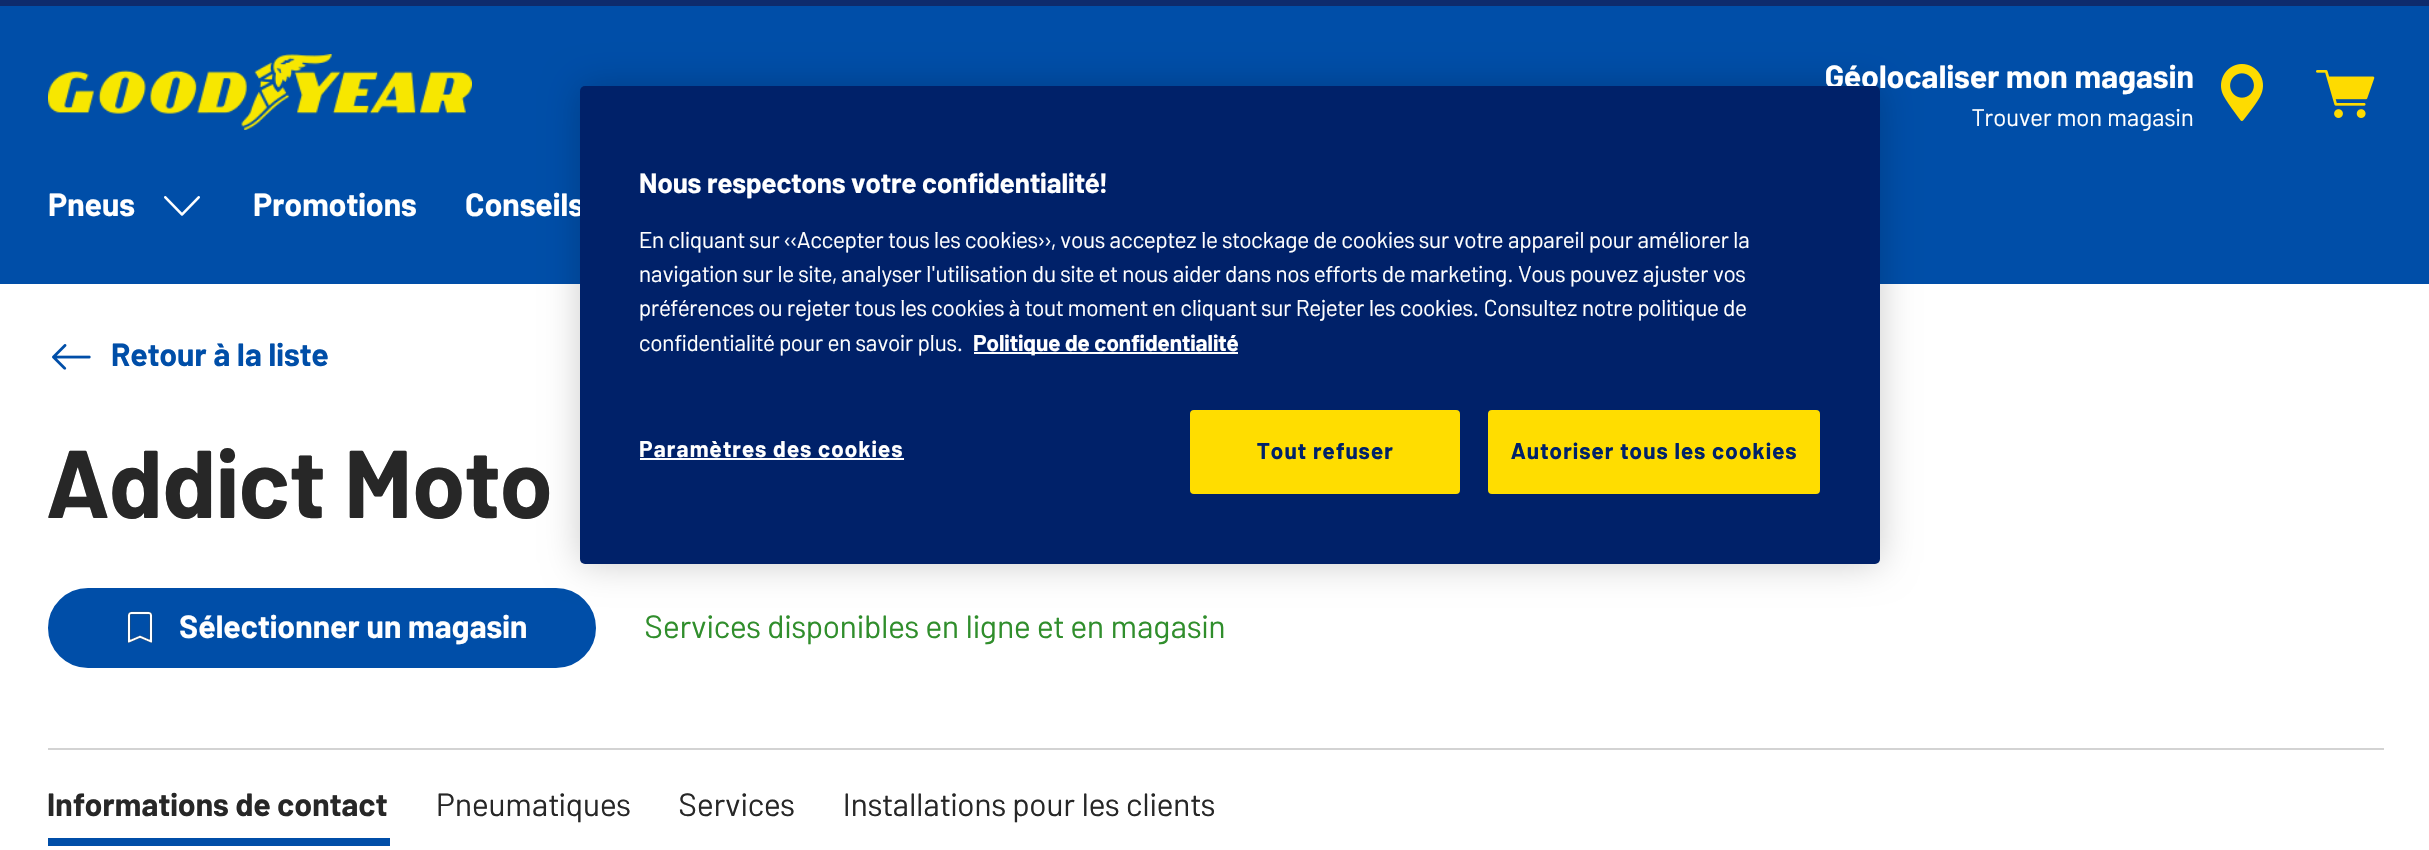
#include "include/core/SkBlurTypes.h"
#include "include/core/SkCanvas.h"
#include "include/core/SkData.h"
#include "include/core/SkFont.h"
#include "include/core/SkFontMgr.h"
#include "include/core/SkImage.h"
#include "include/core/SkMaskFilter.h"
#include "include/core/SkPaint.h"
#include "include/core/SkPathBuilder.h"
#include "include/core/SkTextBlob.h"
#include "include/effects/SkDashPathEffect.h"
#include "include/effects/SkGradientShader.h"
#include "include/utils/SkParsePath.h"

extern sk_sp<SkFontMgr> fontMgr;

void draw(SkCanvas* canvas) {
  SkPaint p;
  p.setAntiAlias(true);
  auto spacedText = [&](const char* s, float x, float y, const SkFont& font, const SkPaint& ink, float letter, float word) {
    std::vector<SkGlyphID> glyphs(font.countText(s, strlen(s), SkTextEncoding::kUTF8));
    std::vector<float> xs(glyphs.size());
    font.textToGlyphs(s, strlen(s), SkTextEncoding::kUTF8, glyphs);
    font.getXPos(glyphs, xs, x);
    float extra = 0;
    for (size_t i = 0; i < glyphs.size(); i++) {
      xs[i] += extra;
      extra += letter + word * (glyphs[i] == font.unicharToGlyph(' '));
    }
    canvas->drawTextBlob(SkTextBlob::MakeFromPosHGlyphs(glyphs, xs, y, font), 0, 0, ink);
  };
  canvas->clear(SK_ColorWHITE);
  p.setColor(SkColorSetRGB(0, 78, 168));
  canvas->drawRect(SkRect::MakeLTRB(0, 6, 2429, 284), p);
  p.setColor(SkColorSetRGB(14, 43, 108));
  canvas->drawRect(SkRect::MakeLTRB(0, 0, 2429, 6), p);
  canvas->drawImageRect(SkImages::DeferredFromEncodedData(SkData::MakeFromFileName("images/1.png")), SkRect::MakeLTRB(2221, 64, 2263, 121), SkSamplingOptions());
  canvas->drawImageRect(SkImages::DeferredFromEncodedData(SkData::MakeFromFileName("images/2.png")), SkRect::MakeLTRB(2316, 70, 2375, 118), SkSamplingOptions());
  canvas->drawImageRect(SkImages::DeferredFromEncodedData(SkData::MakeFromFileName("images/3.png")), SkRect::MakeLTRB(48, 54, 472, 130), SkSamplingOptions());
  canvas->drawImageRect(SkImages::DeferredFromEncodedData(SkData::MakeFromFileName("images/4.png")), SkRect::MakeLTRB(164, 196, 200, 216), SkSamplingOptions());
  p.setColor(SkColorSetRGB(0, 78, 168));
  canvas->drawRoundRect(SkRect::MakeLTRB(50, 590, 594, 666), 38, 38, p);
  p.setStyle(SkPaint::kStroke_Style);
  p.setStrokeWidth(4);
  canvas->drawRoundRect(SkRect::MakeLTRB(50, 590, 594, 666), 38, 38, p);
  p.setStyle(SkPaint::kFill_Style);
  p.setColor(SkColorSetARGB(51, 0, 0, 0));
  p.setMaskFilter(SkMaskFilter::MakeBlur(kNormal_SkBlurStyle, 18));
  canvas->drawRoundRect(SkRect::MakeLTRB(580, 86, 1880, 564), 5, 5, p);
  p.setMaskFilter(nullptr);
  canvas->drawImageRect(SkImages::DeferredFromEncodedData(SkData::MakeFromFileName("images/5.png")), SkRect::MakeLTRB(52, 344, 91, 370), SkSamplingOptions());
  canvas->drawImageRect(SkImages::DeferredFromEncodedData(SkData::MakeFromFileName("images/6.png")), SkRect::MakeLTRB(127, 611, 153, 643), SkSamplingOptions());
  p.setColor(SkColorSetRGB(211, 211, 211));
  canvas->drawRect(SkRect::MakeLTRB(48, 748, 2384, 750), p);
  p.setColor(SkColorSetRGB(0, 78, 168));
  canvas->drawRect(SkRect::MakeLTRB(48, 838, 390, 846), p);
  SkFont font1(fontMgr->matchFamilyStyle("Barlow", SkFontStyle::Bold()), 32);
  font1.setSubpixel(true);
  p.setColor(SK_ColorWHITE);
  spacedText("Géolocaliser mon magasin", 1825, 88, font1, p, 0.2f, 0);
  SkFont font2(fontMgr->matchFamilyStyle("Barlow", SkFontStyle::Normal()), 24);
  font2.setSubpixel(true);
  spacedText("Trouver mon magasin", 1972, 126, font2, p, 0.2f, 0);
  spacedText("Pneus", 48, 216, font1, p, 0.2f, 0);
  spacedText("Promotions", 253, 216, font1, p, 0.2f, 0);
  spacedText("Conseils", 465, 216, font1, p, 0.2f, 0);
  p.setColor(SkColorSetRGB(0, 33, 105));
  canvas->drawRoundRect(SkRect::MakeLTRB(580, 86, 1880, 564), 5, 5, p);
  SkFont font3(fontMgr->matchFamilyStyle("Barlow", SkFontStyle::Bold()), 28);
  font3.setSubpixel(true);
  p.setColor(SK_ColorWHITE);
  canvas->drawString("Nous respectons votre confidentialité!", 639, 193, font3, p);
  SkFont font4(fontMgr->matchFamilyStyle("Barlow", SkFontStyle::Normal()), 22.75f);
  font4.setSubpixel(true);
  canvas->drawString("En cliquant sur «Accepter tous les cookies», vous acceptez le stockage de cookies sur votre appareil pour améliorer la", 639, 248, font4, p);
  canvas->drawString("navigation sur le site, analyser l'utilisation du site et nous aider dans nos efforts de marketing. Vous pouvez ajuster vos", 639, 282, font4, p);
  canvas->drawString("préférences ou rejeter tous les cookies à tout moment en cliquant sur Rejeter les cookies. Consultez notre politique de", 639, 316, font4, p);
  canvas->drawString("confidentialité pour en savoir plus.", 639, 351, font4, p);
  canvas->drawRect(SkRect::MakeLTRB(974, 352, 1238, 354), p);
  SkFont font5(fontMgr->matchFamilyStyle("Barlow", SkFontStyle::Bold()), 22.75f);
  font5.setSubpixel(true);
  canvas->drawString("Politique de confidentialité", 973, 351, font5, p);
  spacedText("Paramètres des cookies", 639, 457, font5, p, 1.15f, 0);
  canvas->drawRect(SkRect::MakeLTRB(640, 458, 904, 460), p);
  p.setColor(SkColorSetRGB(255, 221, 0));
  canvas->drawRoundRect(SkRect::MakeLTRB(1191, 411, 1459, 493), 3, 3, p);
  p.setStyle(SkPaint::kStroke_Style);
  p.setStrokeWidth(2);
  canvas->drawRoundRect(SkRect::MakeLTRB(1191, 411, 1459, 493), 3, 3, p);
  p.setStyle(SkPaint::kFill_Style);
  p.setColor(SkColorSetRGB(0, 33, 105));
  spacedText("Tout refuser", 1257, 459, font5, p, 1.15f, 0);
  p.setColor(SkColorSetRGB(255, 221, 0));
  canvas->drawRoundRect(SkRect::MakeLTRB(1489, 411, 1819, 493), 3, 3, p);
  p.setStyle(SkPaint::kStroke_Style);
  canvas->drawRoundRect(SkRect::MakeLTRB(1489, 411, 1819, 493), 3, 3, p);
  p.setStyle(SkPaint::kFill_Style);
  p.setColor(SkColorSetRGB(0, 33, 105));
  spacedText("Autoriser tous les cookies", 1511, 459, font5, p, 1.15f, 0);
  p.setColor(SkColorSetRGB(0, 78, 168));
  spacedText("Retour à la liste", 111, 366, font1, p, 0.2f, 0);
  SkFont font6(fontMgr->matchFamilyStyle("Barlow", SkFontStyle::Bold()), 96);
  font6.setSubpixel(true);
  p.setColor(SkColorSetRGB(39, 39, 39));
  spacedText("Addict Moto", 47, 518, font6, p, 0.2f, 0);
  p.setColor(SK_ColorWHITE);
  spacedText("Sélectionner un magasin", 179, 638, font1, p, 0.2f, 0);
  SkFont font7(fontMgr->matchFamilyStyle("Barlow", SkFontStyle::Normal()), 32);
  font7.setSubpixel(true);
  p.setColor(SkColorSetRGB(48, 142, 44));
  spacedText("Services disponibles en ligne et en magasin", 644, 638, font7, p, 0.2f, 0);
  p.setColor(SkColorSetRGB(39, 39, 39));
  spacedText("Informations de contact", 47, 816, font1, p, 0.2f, 0);
  spacedText("Pneumatiques", 436, 816, font7, p, 0.2f, 0);
  spacedText("Services", 678, 816, font7, p, 0.2f, 0);
  spacedText("Installations pour les clients", 843, 816, font7, p, 0.2f, 0);
}
